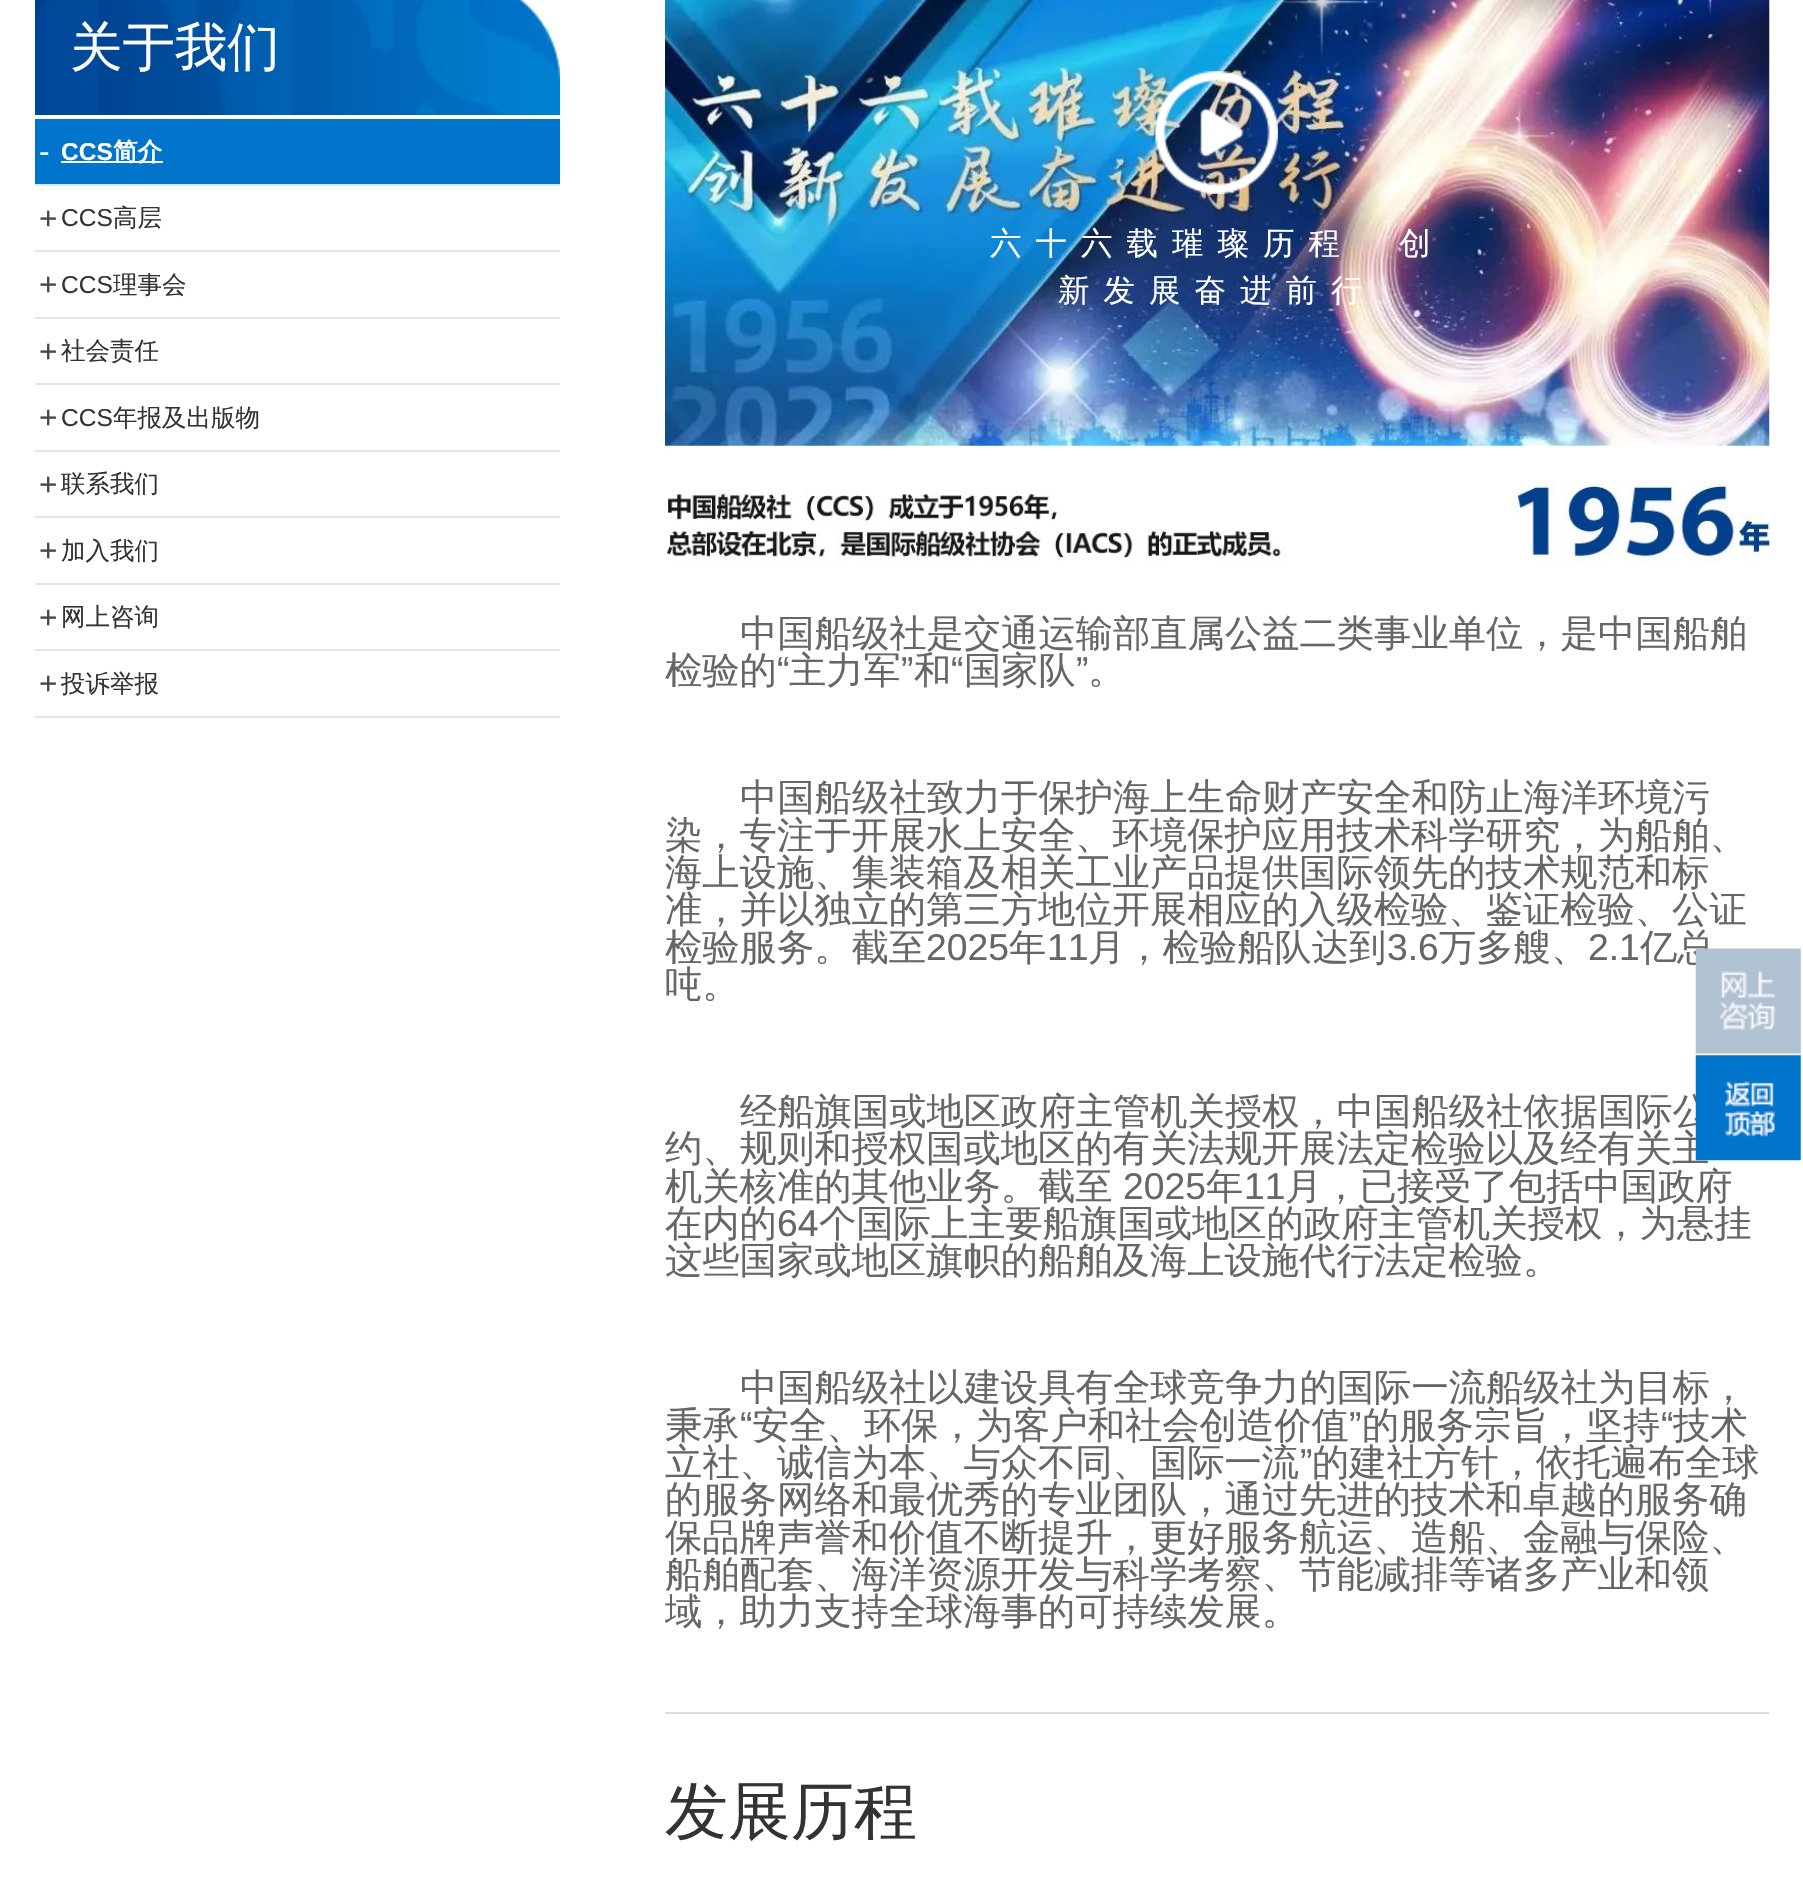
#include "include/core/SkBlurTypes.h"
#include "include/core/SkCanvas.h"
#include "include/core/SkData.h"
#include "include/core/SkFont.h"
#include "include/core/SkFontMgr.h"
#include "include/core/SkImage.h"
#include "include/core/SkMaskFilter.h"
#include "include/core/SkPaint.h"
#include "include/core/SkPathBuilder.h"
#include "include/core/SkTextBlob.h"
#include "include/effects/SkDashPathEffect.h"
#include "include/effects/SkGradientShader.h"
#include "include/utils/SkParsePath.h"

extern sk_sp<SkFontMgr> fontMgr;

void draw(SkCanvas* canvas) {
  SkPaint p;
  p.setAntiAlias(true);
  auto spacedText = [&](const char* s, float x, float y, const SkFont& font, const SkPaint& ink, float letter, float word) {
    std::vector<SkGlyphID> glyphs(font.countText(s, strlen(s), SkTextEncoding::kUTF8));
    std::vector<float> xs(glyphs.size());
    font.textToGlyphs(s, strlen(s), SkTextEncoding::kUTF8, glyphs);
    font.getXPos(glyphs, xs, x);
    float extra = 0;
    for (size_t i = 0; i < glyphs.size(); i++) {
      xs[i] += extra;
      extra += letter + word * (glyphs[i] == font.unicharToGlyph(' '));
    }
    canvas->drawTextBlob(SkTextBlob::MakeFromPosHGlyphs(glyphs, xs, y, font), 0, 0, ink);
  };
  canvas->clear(SK_ColorWHITE);
  canvas->drawImageRect(SkImages::DeferredFromEncodedData(SkData::MakeFromFileName("images/1.png")), SkRect::MakeLTRB(35, 0, 560, 115), SkSamplingOptions());
  p.setColor(SkColorSetRGB(229, 229, 229));
  canvas->drawRect(SkRect::MakeLTRB(35, 184, 560, 186), p);
  p.setColor(SkColorSetRGB(0, 117, 203));
  canvas->drawRect(SkRect::MakeLTRB(35, 119, 560, 184), p);
  p.setColor(SK_ColorWHITE);
  canvas->drawRect(SkRect::MakeLTRB(61, 161, 163, 163), p);
  p.setColor(SkColorSetRGB(229, 229, 229));
  canvas->drawRect(SkRect::MakeLTRB(35, 250, 560, 252), p);
  canvas->drawRect(SkRect::MakeLTRB(35, 317, 560, 319), p);
  canvas->drawRect(SkRect::MakeLTRB(35, 383, 560, 385), p);
  canvas->drawRect(SkRect::MakeLTRB(35, 450, 560, 452), p);
  canvas->drawRect(SkRect::MakeLTRB(35, 516, 560, 518), p);
  canvas->drawRect(SkRect::MakeLTRB(35, 583, 560, 585), p);
  canvas->drawRect(SkRect::MakeLTRB(35, 649, 560, 651), p);
  canvas->drawRect(SkRect::MakeLTRB(35, 716, 560, 718), p);
  p.setColor(SkColorSetRGB(221, 221, 221));
  canvas->drawRect(SkRect::MakeLTRB(665, 1712, 1769, 1714), p);
  canvas->drawImageRect(SkImages::DeferredFromEncodedData(SkData::MakeFromFileName("images/2.png")), SkRect::MakeLTRB(665, 0, 1770, 446), SkSamplingOptions());
  canvas->drawImageRect(SkImages::DeferredFromEncodedData(SkData::MakeFromFileName("images/3.png")), SkRect::MakeLTRB(1155, 71, 1278, 194), SkSamplingOptions());
  canvas->drawImageRect(SkImages::DeferredFromEncodedData(SkData::MakeFromFileName("images/4.png")), SkRect::MakeLTRB(666, 481, 1770, 563), SkSamplingOptions());
  SkFont font1(fontMgr->matchFamilyStyle("WenQuanYi Zen Hei", SkFontStyle(500, SkFontStyle::kNormal_Width, SkFontStyle::kUpright_Slant)), 52.5f);
  font1.setSubpixel(true);
  p.setColor(SK_ColorWHITE);
  canvas->drawString("关于我们", 70, 65, font1, p);
  SkFont font2(fontMgr->matchFamilyStyle("Liberation Sans", SkFontStyle::Normal()), 31.5f);
  font2.setSubpixel(true);
  canvas->drawString("-", 39, 162, font2, p);
  SkFont font3(fontMgr->matchFamilyStyle("Liberation Sans", SkFontStyle::Bold()), 24.5f);
  font3.setSubpixel(true);
  canvas->drawString("CCS", 61, 160, font3, p);
  SkFont font4(fontMgr->matchFamilyStyle("WenQuanYi Zen Hei", SkFontStyle::Bold()), 24.5f);
  font4.setSubpixel(true);
  canvas->drawString("简介", 113, 160, font4, p);
  p.setColor(SkColorSetRGB(71, 71, 71));
  canvas->drawString("+", 39, 229, font2, p);
  SkFont font5(fontMgr->matchFamilyStyle("Liberation Sans", SkFontStyle::Normal()), 24.5f);
  font5.setSubpixel(true);
  p.setColor(SkColorSetRGB(51, 51, 51));
  canvas->drawString("CCS", 61, 226, font5, p);
  SkFont font6(fontMgr->matchFamilyStyle("WenQuanYi Zen Hei", SkFontStyle(500, SkFontStyle::kNormal_Width, SkFontStyle::kUpright_Slant)), 24.5f);
  font6.setSubpixel(true);
  canvas->drawString("高层", 113, 226, font6, p);
  p.setColor(SkColorSetRGB(71, 71, 71));
  canvas->drawString("+", 39, 295, font2, p);
  p.setColor(SkColorSetRGB(51, 51, 51));
  canvas->drawString("CCS", 61, 293, font5, p);
  canvas->drawString("理事会", 113, 293, font6, p);
  p.setColor(SkColorSetRGB(71, 71, 71));
  canvas->drawString("+", 39, 362, font2, p);
  p.setColor(SkColorSetRGB(51, 51, 51));
  canvas->drawString("社会责任", 61, 359, font6, p);
  p.setColor(SkColorSetRGB(71, 71, 71));
  canvas->drawString("+", 39, 428, font2, p);
  p.setColor(SkColorSetRGB(51, 51, 51));
  canvas->drawString("CCS", 61, 426, font5, p);
  canvas->drawString("年报及出版物", 113, 426, font6, p);
  p.setColor(SkColorSetRGB(71, 71, 71));
  canvas->drawString("+", 39, 495, font2, p);
  p.setColor(SkColorSetRGB(51, 51, 51));
  canvas->drawString("联系我们", 61, 492, font6, p);
  p.setColor(SkColorSetRGB(71, 71, 71));
  canvas->drawString("+", 39, 561, font2, p);
  p.setColor(SkColorSetRGB(51, 51, 51));
  canvas->drawString("加入我们", 61, 559, font6, p);
  p.setColor(SkColorSetRGB(71, 71, 71));
  canvas->drawString("+", 39, 628, font2, p);
  p.setColor(SkColorSetRGB(51, 51, 51));
  canvas->drawString("网上咨询", 61, 625, font6, p);
  p.setColor(SkColorSetRGB(71, 71, 71));
  canvas->drawString("+", 39, 694, font2, p);
  p.setColor(SkColorSetRGB(51, 51, 51));
  canvas->drawString("投诉举报", 61, 692, font6, p);
  SkFont font7(fontMgr->matchFamilyStyle("WenQuanYi Zen Hei", SkFontStyle(500, SkFontStyle::kNormal_Width, SkFontStyle::kUpright_Slant)), 31.5f);
  font7.setSubpixel(true);
  p.setColor(SK_ColorWHITE);
  spacedText("六十六载璀璨历程", 990, 254, font7, p, 14, 0);
  spacedText("创", 1399, 254, font7, p, 14, 0);
  spacedText("新发展奋进前行", 1058, 301, font7, p, 14, 0);
  SkFont font8(fontMgr->matchFamilyStyle("WenQuanYi Zen Hei", SkFontStyle(500, SkFontStyle::kNormal_Width, SkFontStyle::kUpright_Slant)), 37.3f);
  font8.setSubpixel(true);
  p.setColor(SkColorSetRGB(102, 102, 102));
  canvas->drawString("中国船级社是交通运输部直属公益二类事业单位，是中国船舶", 740, 646, font8, p);
  canvas->drawString("检验的", 665, 683, font8, p);
  SkFont font9(fontMgr->matchFamilyStyle("Liberation Sans", SkFontStyle::Normal()), 37.3f);
  font9.setSubpixel(true);
  canvas->drawString("“", 777, 683, font9, p);
  canvas->drawString("主力军", 789, 683, font8, p);
  canvas->drawString("”", 901, 683, font9, p);
  canvas->drawString("和", 914, 683, font8, p);
  canvas->drawString("“", 951, 683, font9, p);
  canvas->drawString("国家队", 964, 683, font8, p);
  canvas->drawString("”", 1076, 683, font9, p);
  canvas->drawString("。", 1088, 683, font8, p);
  canvas->drawString("中国船级社致力于保护海上生命财产安全和防止海洋环境污", 740, 810, font8, p);
  canvas->drawString("染，专注于开展水上安全、环境保护应用技术科学研究，为船舶、", 665, 848, font8, p);
  canvas->drawString("海上设施、集装箱及相关工业产品提供国际领先的技术规范和标", 665, 885, font8, p);
  canvas->drawString("准，并以独立的第三方地位开展相应的入级检验、鉴证检验、公证", 665, 922, font8, p);
  canvas->drawString("检验服务。截至", 665, 960, font8, p);
  canvas->drawString("2025", 926, 960, font9, p);
  canvas->drawString("年", 1009, 960, font8, p);
  canvas->drawString("11", 1047, 960, font9, p);
  canvas->drawString("月，检验船队达到", 1088, 960, font8, p);
  canvas->drawString("3.6", 1387, 960, font9, p);
  canvas->drawString("万多艘、", 1439, 960, font8, p);
  canvas->drawString("2.1", 1588, 960, font9, p);
  canvas->drawString("亿总", 1640, 960, font8, p);
  canvas->drawString("吨。", 665, 997, font8, p);
  canvas->drawString("经船旗国或地区政府主管机关授权，中国船级社依据国际公", 740, 1124, font8, p);
  canvas->drawString("约、规则和授权国或地区的有关法规开展法定检验以及经有关主", 665, 1161, font8, p);
  canvas->drawString("机关核准的其他业务。截至", 665, 1199, font8, p);
  canvas->drawString("2025", 1123, 1199, font9, p);
  canvas->drawString("年", 1206, 1199, font8, p);
  canvas->drawString("11", 1244, 1199, font9, p);
  canvas->drawString("月，已接受了包括中国政府", 1285, 1199, font8, p);
  canvas->drawString("在内的", 665, 1236, font8, p);
  canvas->drawString("64", 777, 1236, font9, p);
  canvas->drawString("个国际上主要船旗国或地区的政府主管机关授权，为悬挂", 819, 1236, font8, p);
  canvas->drawString("这些国家或地区旗帜的船舶及海上设施代行法定检验。", 665, 1273, font8, p);
  canvas->drawString("中国船级社以建设具有全球竞争力的国际一流船级社为目标，", 740, 1400, font8, p);
  canvas->drawString("秉承", 665, 1438, font8, p);
  canvas->drawString("“", 740, 1438, font9, p);
  canvas->drawString("安全、环保，为客户和社会创造价值", 752, 1438, font8, p);
  canvas->drawString("”", 1349, 1438, font9, p);
  canvas->drawString("的服务宗旨，坚持", 1362, 1438, font8, p);
  canvas->drawString("“", 1661, 1438, font9, p);
  canvas->drawString("技术", 1673, 1438, font8, p);
  canvas->drawString("立社、诚信为本、与众不同、国际一流", 665, 1475, font8, p);
  canvas->drawString("”", 1300, 1475, font9, p);
  canvas->drawString("的建社方针，依托遍布全球", 1312, 1475, font8, p);
  canvas->drawString("的服务网络和最优秀的专业团队，通过先进的技术和卓越的服务确", 665, 1512, font8, p);
  canvas->drawString("保品牌声誉和价值不断提升，更好服务航运、造船、金融与保险、", 665, 1550, font8, p);
  canvas->drawString("船舶配套、海洋资源开发与科学考察、节能减排等诸多产业和领", 665, 1587, font8, p);
  canvas->drawString("域，助力支持全球海事的可持续发展。", 665, 1624, font8, p);
  SkFont font10(fontMgr->matchFamilyStyle("WenQuanYi Zen Hei", SkFontStyle(500, SkFontStyle::kNormal_Width, SkFontStyle::kUpright_Slant)), 63);
  font10.setSubpixel(true);
  p.setColor(SkColorSetRGB(51, 51, 51));
  canvas->drawString("发展历程", 665, 1833, font10, p);
  canvas->drawImageRect(SkImages::DeferredFromEncodedData(SkData::MakeFromFileName("images/5.png")), SkRect::MakeLTRB(1695, 948, 1801, 1054), SkSamplingOptions());
  canvas->drawImageRect(SkImages::DeferredFromEncodedData(SkData::MakeFromFileName("images/6.png")), SkRect::MakeLTRB(1695, 1055, 1801, 1161), SkSamplingOptions());
}
